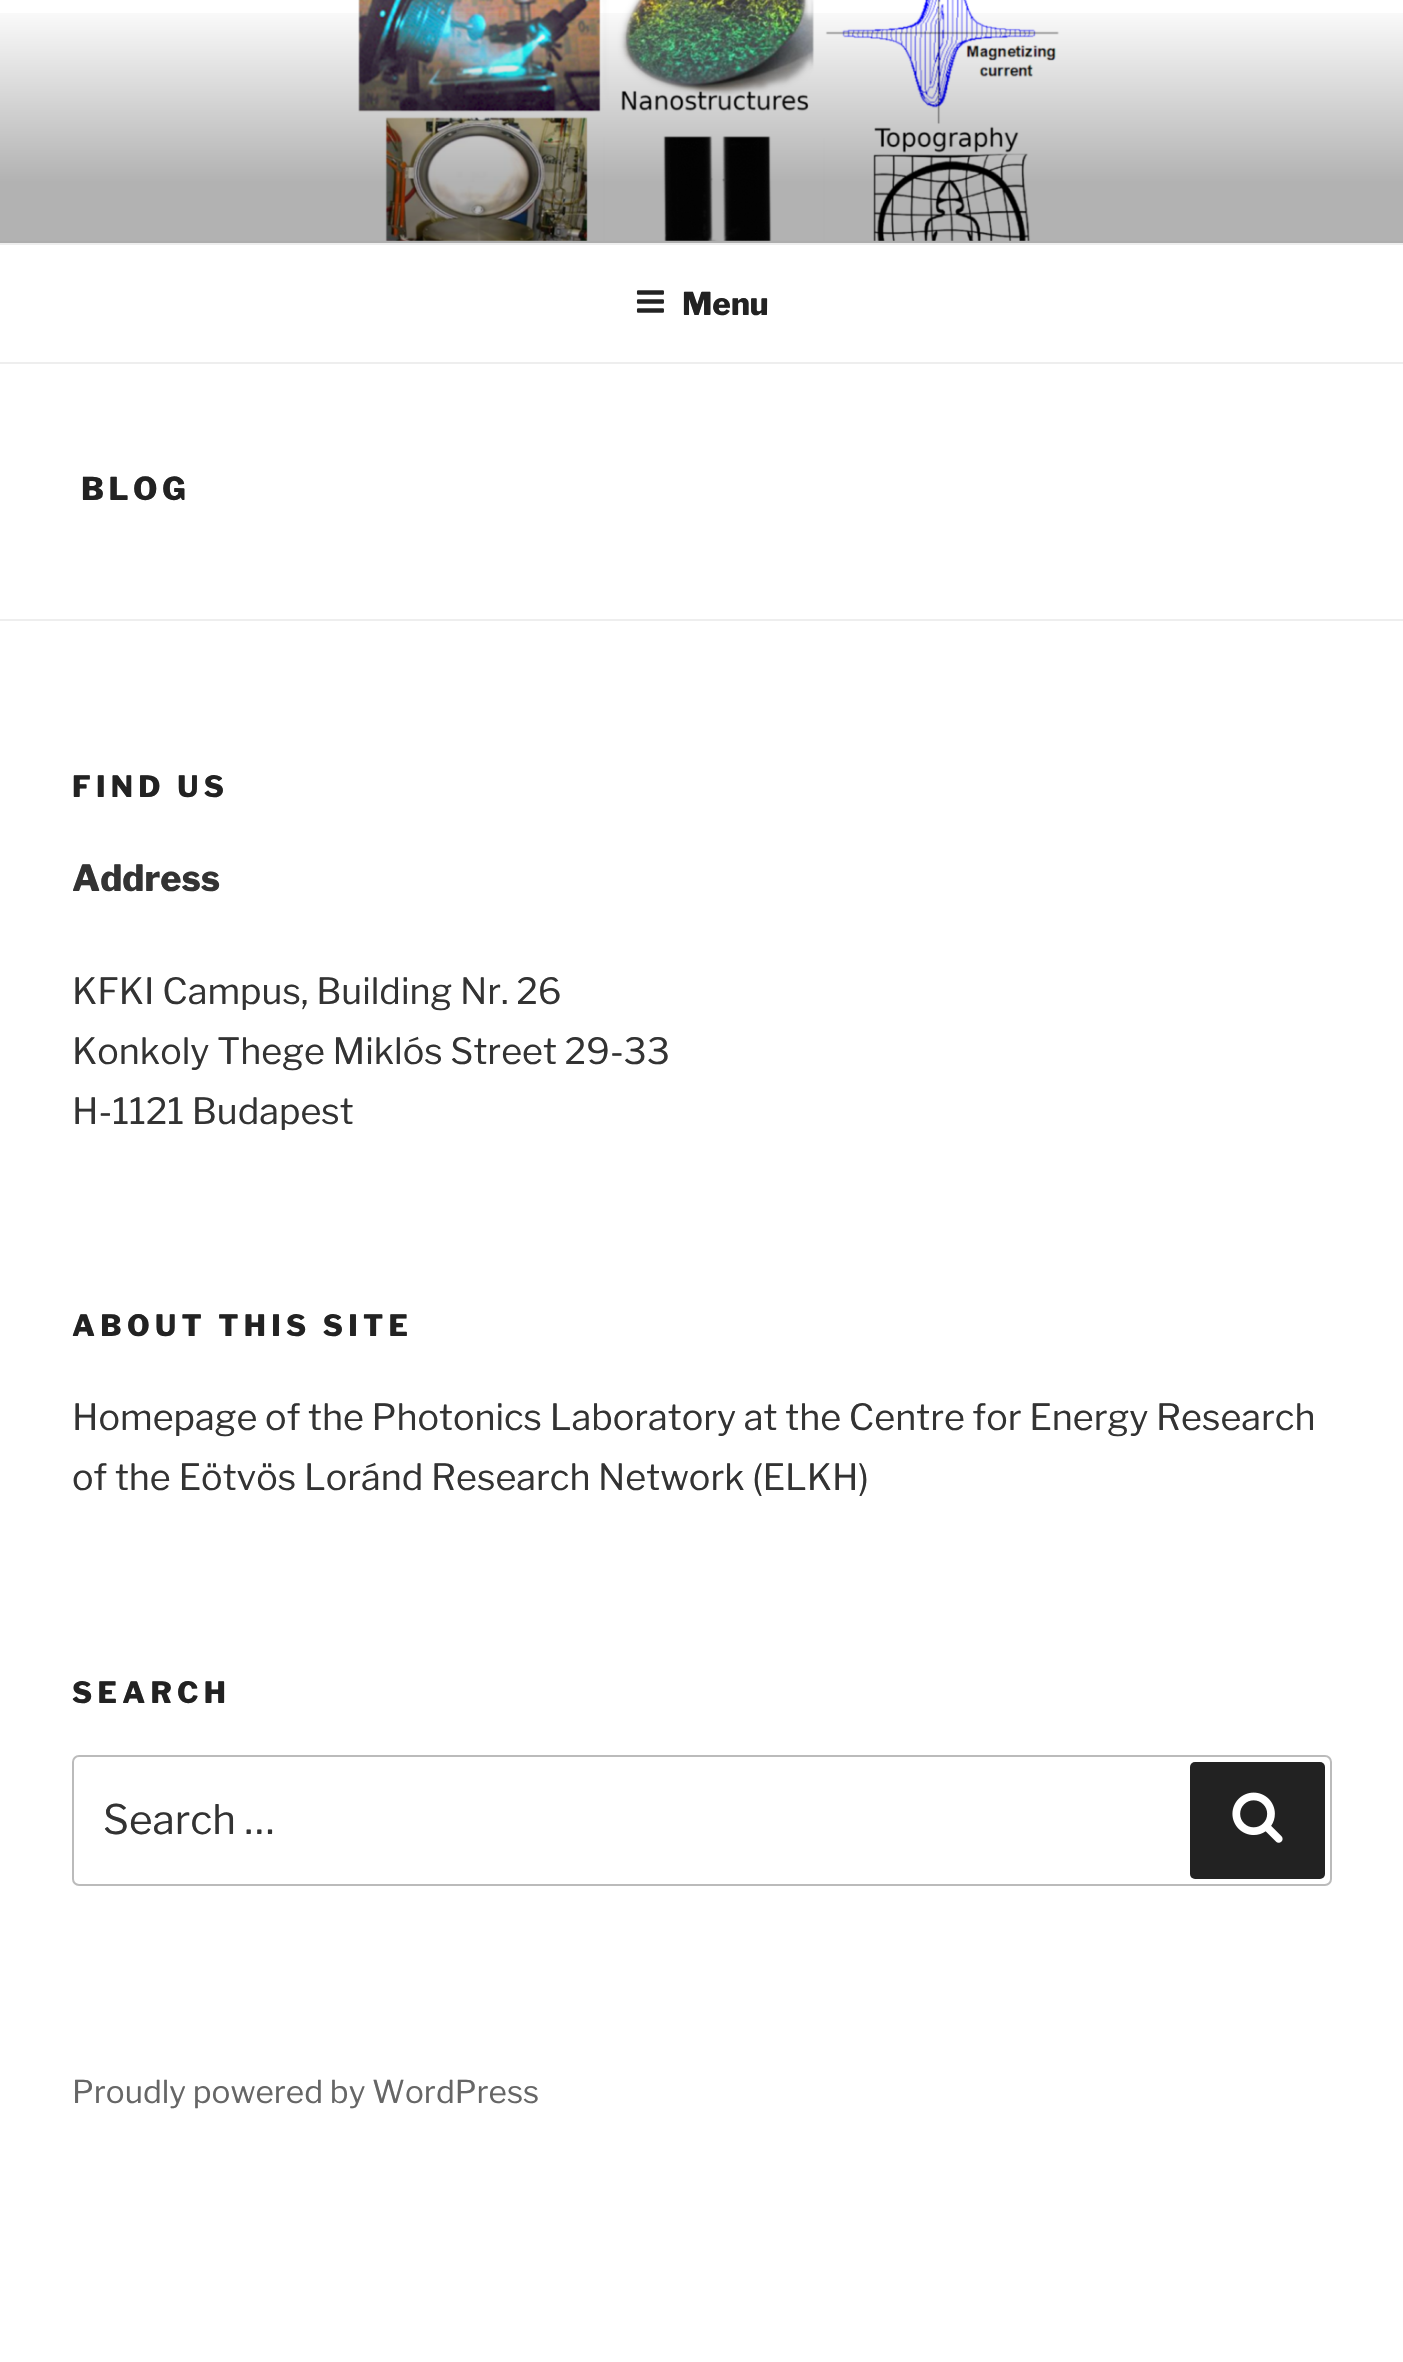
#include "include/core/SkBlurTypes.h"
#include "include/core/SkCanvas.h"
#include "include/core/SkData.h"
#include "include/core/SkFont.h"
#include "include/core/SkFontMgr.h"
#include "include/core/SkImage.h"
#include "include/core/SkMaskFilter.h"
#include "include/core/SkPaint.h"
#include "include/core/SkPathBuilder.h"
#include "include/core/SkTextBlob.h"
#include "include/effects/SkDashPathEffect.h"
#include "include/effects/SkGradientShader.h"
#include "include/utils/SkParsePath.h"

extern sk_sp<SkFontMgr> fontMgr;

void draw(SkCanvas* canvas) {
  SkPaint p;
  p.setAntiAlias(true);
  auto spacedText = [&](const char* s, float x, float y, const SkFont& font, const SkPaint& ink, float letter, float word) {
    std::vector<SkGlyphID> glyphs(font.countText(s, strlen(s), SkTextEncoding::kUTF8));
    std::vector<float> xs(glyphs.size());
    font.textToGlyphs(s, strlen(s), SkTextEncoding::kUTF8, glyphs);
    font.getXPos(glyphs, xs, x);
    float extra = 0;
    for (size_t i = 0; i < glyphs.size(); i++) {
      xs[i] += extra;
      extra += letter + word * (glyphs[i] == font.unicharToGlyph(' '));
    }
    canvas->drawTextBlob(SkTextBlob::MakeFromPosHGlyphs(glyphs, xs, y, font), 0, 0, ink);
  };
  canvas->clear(SK_ColorWHITE);
  p.setColor(SkColorSetRGB(250, 250, 250));
  canvas->drawRect(SkRect::MakeLTRB(0, 240, 1403, 243), p);
  canvas->drawImageRect(SkImages::DeferredFromEncodedData(SkData::MakeFromFileName("images/1.png")), SkRect::MakeLTRB(0, 0, 1403, 241), SkSamplingOptions());
  {
    const SkColor colors[] = {SkColorSetARGB(0, 0, 0, 0), SkColorSetARGB(77, 0, 0, 0), SkColorSetARGB(77, 0, 0, 0)};
    const float stops[] = {0, 0.75f, 1};
    const SkPoint ends[] = {{702, 0}, {702, 243}};
    p.setShader(SkGradientShader::MakeLinear(ends, colors, stops, 3, SkTileMode::kClamp));
    p.setAlpha(255);
  }
  canvas->drawRect(SkRect::MakeLTRB(0, 13, 1403, 243), p);
  p.setShader(nullptr);
  p.setColor(SkColorSetRGB(238, 238, 238));
  canvas->drawRect(SkRect::MakeLTRB(0, 243, 1403, 245), p);
  canvas->drawRect(SkRect::MakeLTRB(0, 362, 1403, 364), p);
  canvas->drawImageRect(SkImages::DeferredFromEncodedData(SkData::MakeFromFileName("images/2.png")), SkRect::MakeLTRB(636, 290, 664, 313), SkSamplingOptions());
  canvas->drawRect(SkRect::MakeLTRB(0, 619, 1403, 621), p);
  p.setStyle(SkPaint::kStroke_Style);
  p.setStrokeWidth(2);
  p.setColor(SkColorSetRGB(187, 187, 187));
  canvas->drawRoundRect(SkRect::MakeLTRB(73, 1756, 1331, 1885), 6, 6, p);
  p.setStyle(SkPaint::kFill_Style);
  p.setColor(SkColorSetRGB(34, 34, 34));
  canvas->drawRoundRect(SkRect::MakeLTRB(1190, 1762, 1325, 1879), 5, 5, p);
  canvas->drawImageRect(SkImages::DeferredFromEncodedData(SkData::MakeFromFileName("images/3.png")), SkRect::MakeLTRB(1232, 1792, 1283, 1843), SkSamplingOptions());
  SkFont font1(fontMgr->matchFamilyStyle("Libre Franklin", SkFontStyle(100, SkFontStyle::kNormal_Width, SkFontStyle::kUpright_Slant)), 31.5f);
  font1.setSubpixel(true);
  canvas->drawString("Menu", 682, 315, font1, p);
  spacedText("BLOG", 81, 500, font1, p, 4.5f, 0);
  SkFont font2(fontMgr->matchFamilyStyle("Libre Franklin", SkFontStyle(100, SkFontStyle::kNormal_Width, SkFontStyle::kUpright_Slant)), 29.25f);
  font2.setSubpixel(true);
  spacedText("FIND US", 72, 797, font2, p, 5.3f, 0);
  SkFont font3(fontMgr->matchFamilyStyle("Libre Franklin", SkFontStyle(100, SkFontStyle::kNormal_Width, SkFontStyle::kUpright_Slant)), 36);
  font3.setSubpixel(true);
  p.setColor(SkColorSetRGB(51, 51, 51));
  canvas->drawString("Address", 72, 891, font3, p);
  SkFont font4(fontMgr->matchFamilyStyle("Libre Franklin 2", SkFontStyle(100, SkFontStyle::kNormal_Width, SkFontStyle::kUpright_Slant)), 36);
  font4.setSubpixel(true);
  canvas->drawString("KFKI Campus, Building Nr. 26", 72, 1004, font4, p);
  canvas->drawString("Konkoly Thege Miklós Street 29-33", 72, 1064, font4, p);
  canvas->drawString("H-1121 Budapest", 72, 1124, font4, p);
  p.setColor(SkColorSetRGB(34, 34, 34));
  spacedText("ABOUT THIS SITE", 72, 1336, font2, p, 5.3f, 0);
  p.setColor(SkColorSetRGB(51, 51, 51));
  canvas->drawString("Homepage of the Photonics Laboratory at the Centre for Energy Research", 72, 1430, font4, p);
  canvas->drawString("of the Eötvös Loránd Research Network (ELKH)", 72, 1490, font4, p);
  p.setColor(SkColorSetRGB(34, 34, 34));
  spacedText("SEARCH", 72, 1703, font2, p, 5.3f, 0);
  SkFont font5(fontMgr->matchFamilyStyle("Libre Franklin 2", SkFontStyle(100, SkFontStyle::kNormal_Width, SkFontStyle::kUpright_Slant)), 40.5f);
  font5.setSubpixel(true);
  p.setColor(SkColorSetRGB(51, 51, 51));
  canvas->drawString("Search …", 103, 1834, font5, p);
  SkFont font6(fontMgr->matchFamilyStyle("Libre Franklin 2", SkFontStyle(100, SkFontStyle::kNormal_Width, SkFontStyle::kUpright_Slant)), 31.5f);
  font6.setSubpixel(true);
  p.setColor(SkColorSetRGB(102, 102, 102));
  canvas->drawString("Proudly powered by WordPress", 72, 2103, font6, p);
}
